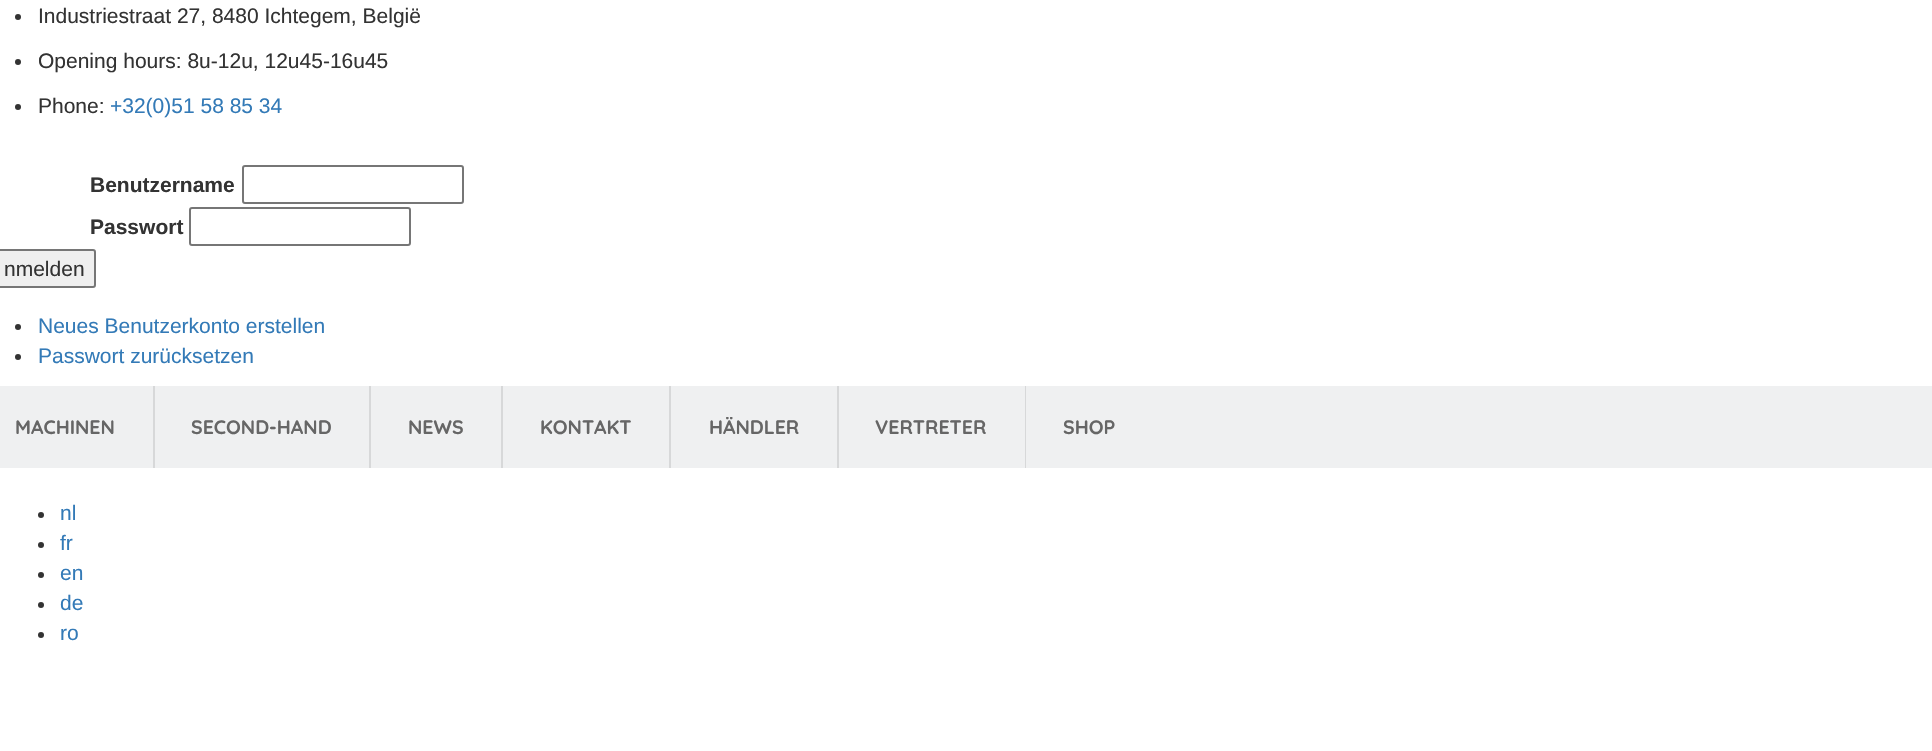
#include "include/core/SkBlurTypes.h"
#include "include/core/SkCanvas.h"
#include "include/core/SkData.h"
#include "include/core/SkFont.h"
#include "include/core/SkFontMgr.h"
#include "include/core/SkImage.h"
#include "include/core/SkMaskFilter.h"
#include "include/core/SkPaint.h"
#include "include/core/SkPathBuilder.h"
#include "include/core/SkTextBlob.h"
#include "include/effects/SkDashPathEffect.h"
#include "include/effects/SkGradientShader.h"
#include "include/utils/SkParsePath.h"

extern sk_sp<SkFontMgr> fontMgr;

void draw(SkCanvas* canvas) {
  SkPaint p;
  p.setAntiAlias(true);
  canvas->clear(SK_ColorWHITE);
  p.setColor(SkColorSetRGB(51, 51, 51));
  canvas->drawCircle(18, 17, 3, p);
  canvas->drawCircle(18, 62, 3, p);
  canvas->drawCircle(18, 107, 3, p);
  p.setStyle(SkPaint::kStroke_Style);
  p.setStrokeWidth(2);
  p.setColor(SkColorSetRGB(118, 118, 118));
  canvas->drawRoundRect(SkRect::MakeLTRB(243, 166, 463, 203), 2, 2, p);
  canvas->drawRoundRect(SkRect::MakeLTRB(190, 208, 410, 245), 2, 2, p);
  p.setStyle(SkPaint::kFill_Style);
  p.setColor(SkColorSetRGB(239, 239, 239));
  canvas->drawRoundRect(SkRect::MakeLTRB(-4, 250, 95, 287), 2, 2, p);
  p.setStyle(SkPaint::kStroke_Style);
  p.setColor(SkColorSetRGB(118, 118, 118));
  canvas->drawRoundRect(SkRect::MakeLTRB(-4, 250, 95, 287), 2, 2, p);
  p.setStyle(SkPaint::kFill_Style);
  p.setColor(SkColorSetRGB(51, 51, 51));
  canvas->drawCircle(18, 327, 3, p);
  canvas->drawCircle(18, 357, 3, p);
  p.setColor(SkColorSetRGB(239, 240, 241));
  canvas->drawRect(SkRect::MakeLTRB(0, 386, 1932, 468), p);
  p.setColor(SkColorSetRGB(215, 216, 217));
  canvas->drawRect(SkRect::MakeLTRB(153, 386, 155, 468), p);
  canvas->drawRect(SkRect::MakeLTRB(369, 386, 371, 468), p);
  canvas->drawRect(SkRect::MakeLTRB(501, 386, 503, 468), p);
  canvas->drawRect(SkRect::MakeLTRB(669, 386, 671, 468), p);
  canvas->drawRect(SkRect::MakeLTRB(837, 386, 839, 468), p);
  canvas->drawRect(SkRect::MakeLTRB(1025, 386, 1026, 468), p);
  p.setColor(SkColorSetRGB(51, 51, 51));
  canvas->drawCircle(41, 515, 3, p);
  canvas->drawCircle(41, 545, 3, p);
  canvas->drawCircle(41, 575, 3, p);
  canvas->drawCircle(41, 605, 3, p);
  canvas->drawCircle(41, 635, 3, p);
  SkFont font1(fontMgr->matchFamilyStyle("Liberation Sans", SkFontStyle::Normal()), 21);
  font1.setSubpixel(true);
  canvas->drawString("Industriestraat 27, 8480 Ichtegem, België", 38, 23, font1, p);
  canvas->drawString("Opening hours: 8u-12u, 12u45-16u45", 38, 68, font1, p);
  canvas->drawString("Phone:", 38, 113, font1, p);
  p.setColor(SkColorSetRGB(51, 122, 183));
  canvas->drawString("+32(0)51 58 85 34", 110, 113, font1, p);
  SkFont font2(fontMgr->matchFamilyStyle("Liberation Sans", SkFontStyle::Bold()), 21);
  font2.setSubpixel(true);
  p.setColor(SkColorSetRGB(51, 51, 51));
  canvas->drawString("Benutzername", 90, 192, font2, p);
  canvas->drawString("Passwort", 90, 234, font2, p);
  canvas->drawString("nmelden", 4, 276, font1, p);
  p.setColor(SkColorSetRGB(51, 122, 183));
  canvas->drawString("Neues Benutzerkonto erstellen", 38, 333, font1, p);
  canvas->drawString("Passwort zurücksetzen", 38, 363, font1, p);
  SkFont font3(fontMgr->matchFamilyStyle("Quicksand", SkFontStyle::Bold()), 19.5f);
  font3.setSubpixel(true);
  p.setColor(SkColorSetRGB(102, 102, 102));
  canvas->drawString("MACHINEN", 15, 434, font3, p);
  canvas->drawString("SECOND-HAND", 191, 434, font3, p);
  canvas->drawString("NEWS", 408, 434, font3, p);
  canvas->drawString("KONTAKT", 540, 434, font3, p);
  canvas->drawString("HÄNDLER", 709, 434, font3, p);
  canvas->drawString("VERTRETER", 875, 434, font3, p);
  canvas->drawString("SHOP", 1063, 434, font3, p);
  p.setColor(SkColorSetRGB(51, 122, 183));
  canvas->drawString("nl", 60, 520, font1, p);
  canvas->drawString("fr", 60, 550, font1, p);
  canvas->drawString("en", 60, 580, font1, p);
  canvas->drawString("de", 60, 610, font1, p);
  canvas->drawString("ro", 60, 640, font1, p);
}
